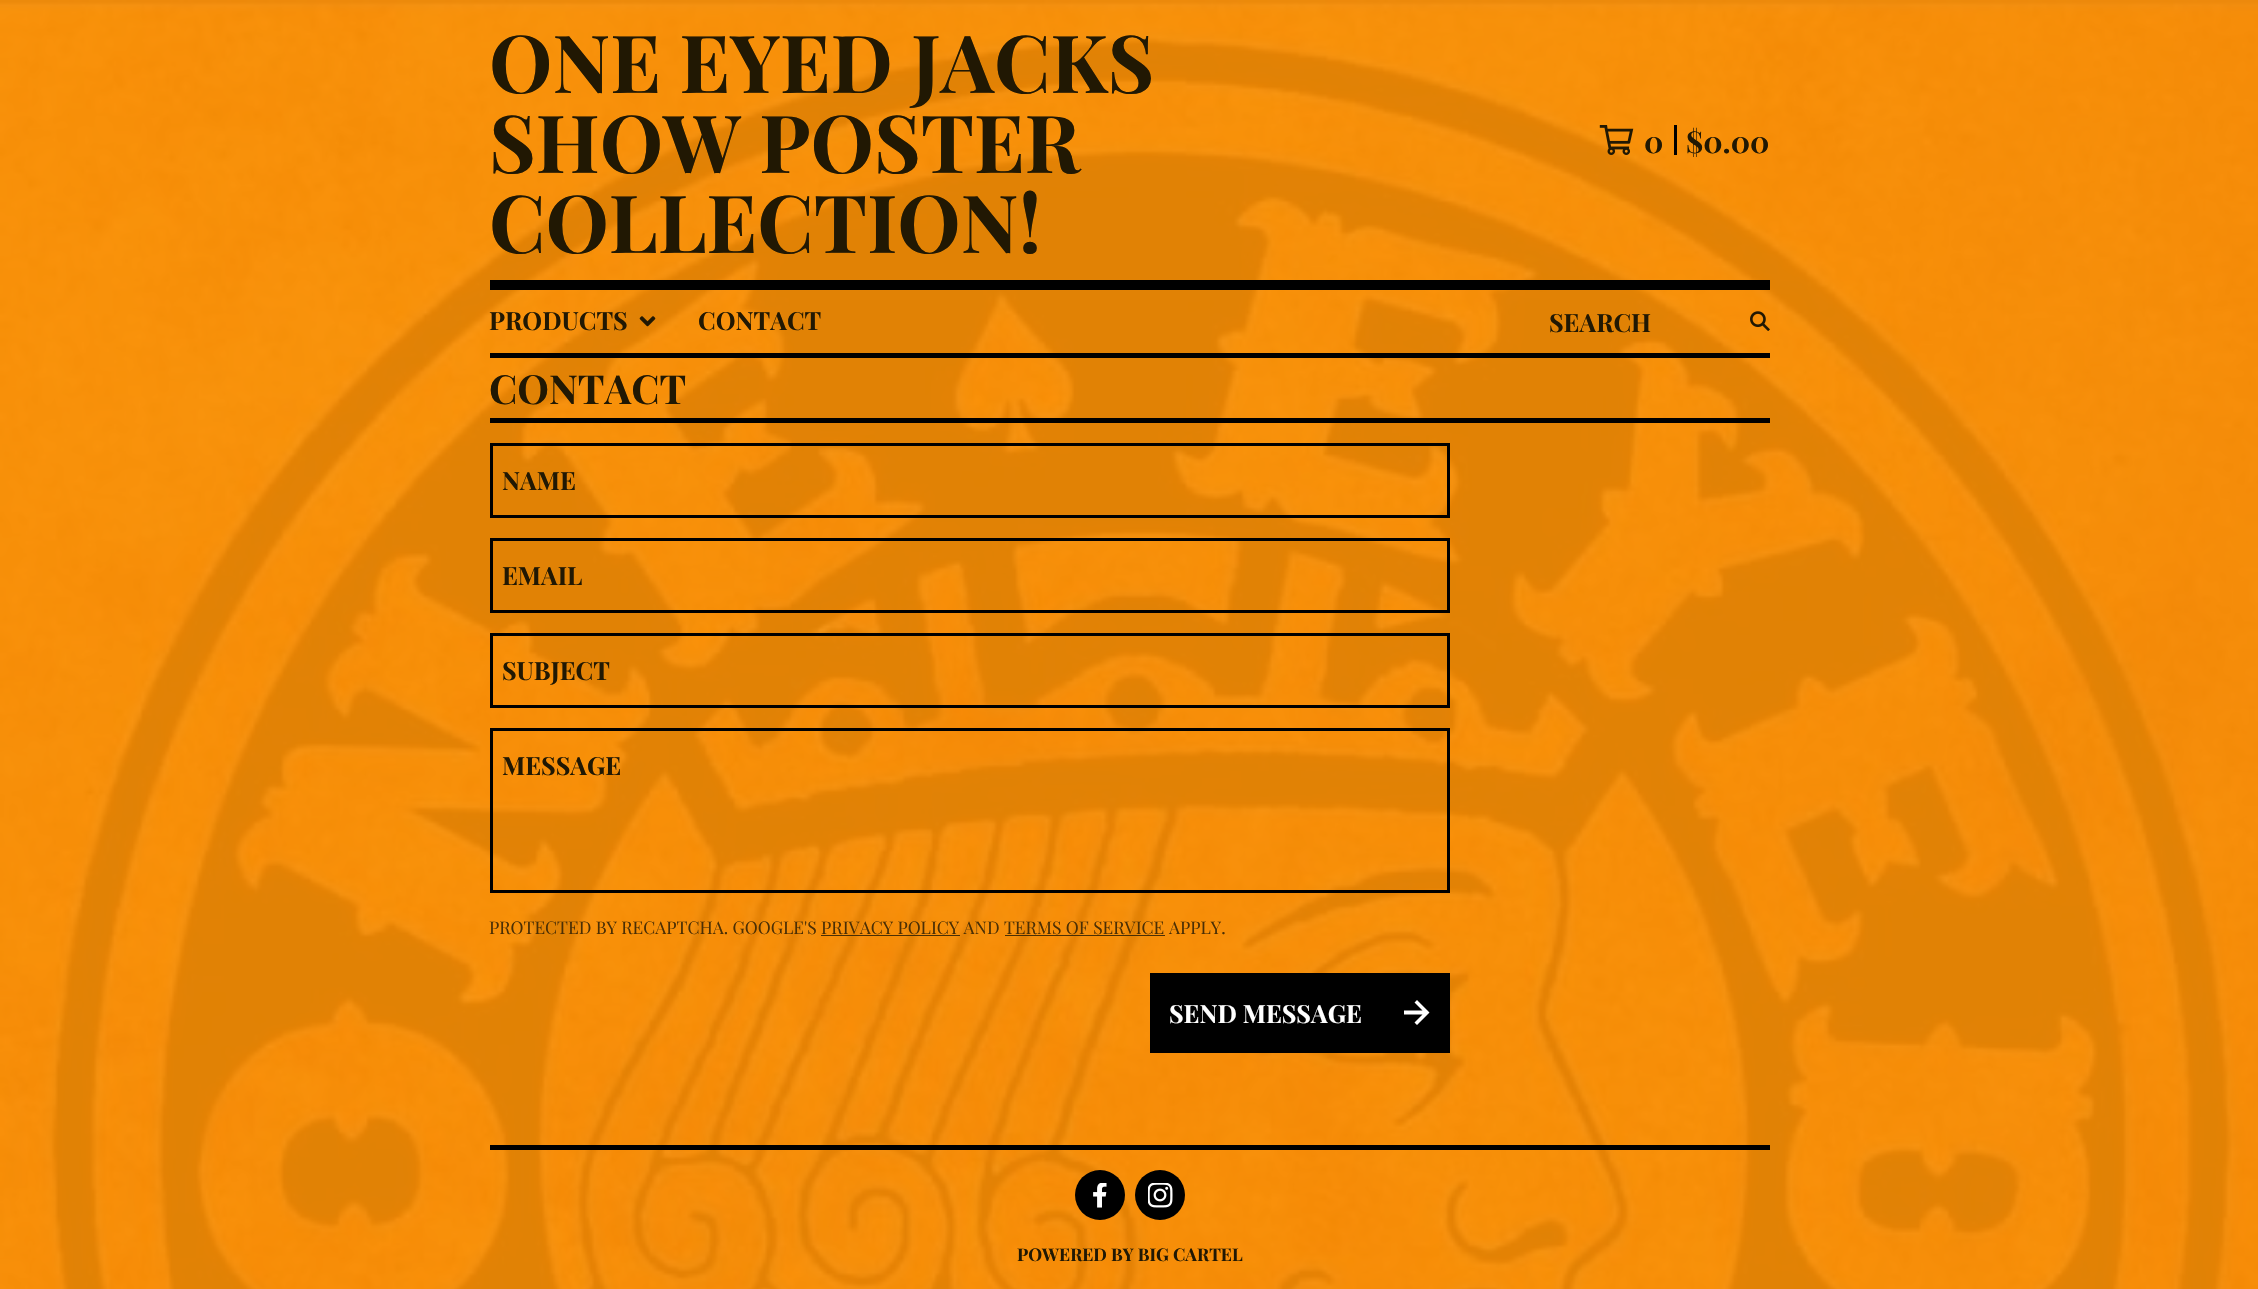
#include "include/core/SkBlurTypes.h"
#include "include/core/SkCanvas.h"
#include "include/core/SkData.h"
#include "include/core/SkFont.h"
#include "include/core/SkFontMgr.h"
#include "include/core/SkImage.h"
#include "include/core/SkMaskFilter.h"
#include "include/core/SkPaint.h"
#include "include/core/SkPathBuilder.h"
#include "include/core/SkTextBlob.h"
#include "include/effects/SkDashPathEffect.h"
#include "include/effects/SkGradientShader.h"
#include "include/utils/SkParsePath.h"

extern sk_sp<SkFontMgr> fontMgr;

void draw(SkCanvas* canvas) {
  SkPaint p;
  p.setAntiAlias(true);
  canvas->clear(SK_ColorWHITE);
  canvas->drawImageRect(SkImages::DeferredFromEncodedData(SkData::MakeFromFileName("images/1.png")), SkRect::MakeLTRB(0, 0, 2258, 1289), SkSamplingOptions());
  p.setColor(SK_ColorBLACK);
  canvas->drawRect(SkRect::MakeLTRB(490, 280, 1770, 290), p);
  canvas->drawImageRect(SkImages::DeferredFromEncodedData(SkData::MakeFromFileName("images/2.png")), SkRect::MakeLTRB(1599, 125, 1634, 155), SkSamplingOptions());
  canvas->drawRect(SkRect::MakeLTRB(1674, 125, 1677, 155), p);
  canvas->drawRect(SkRect::MakeLTRB(490, 353, 1770, 358), p);
  canvas->drawImageRect(SkImages::DeferredFromEncodedData(SkData::MakeFromFileName("images/3.png")), SkRect::MakeLTRB(639, 316, 656, 327), SkSamplingOptions());
  canvas->drawImageRect(SkImages::DeferredFromEncodedData(SkData::MakeFromFileName("images/4.png")), SkRect::MakeLTRB(1750, 311, 1770, 331), SkSamplingOptions());
  canvas->drawRect(SkRect::MakeLTRB(490, 418, 1770, 423), p);
  p.setStyle(SkPaint::kStroke_Style);
  p.setStrokeWidth(3);
  canvas->drawRect(SkRect::MakeLTRB(491.5f, 444.5f, 1448.5f, 516.5f), p);
  canvas->drawRect(SkRect::MakeLTRB(491.5f, 539.5f, 1448.5f, 611.5f), p);
  canvas->drawRect(SkRect::MakeLTRB(491.5f, 634.5f, 1448.5f, 706.5f), p);
  canvas->drawRect(SkRect::MakeLTRB(491.5f, 729.5f, 1448.5f, 891.5f), p);
  p.setStyle(SkPaint::kFill_Style);
  p.setColor(SkColorSetARGB(204, 33, 24, 3));
  canvas->drawRect(SkRect::MakeLTRB(821, 935, 960, 936), p);
  canvas->drawRect(SkRect::MakeLTRB(1005, 935, 1165, 936), p);
  p.setColor(SK_ColorBLACK);
  canvas->drawRect(SkRect::MakeLTRB(1150, 973, 1450, 1053), p);
  p.setColor(SK_ColorWHITE);
  canvas->drawPath(SkPathBuilder(SkPathFillType::kEvenOdd).moveTo(1417, 1000).lineTo(1429.5f, 1012.5f).lineTo(1417, 1025).lineTo(1414.5f, 1022.5f).lineTo(1422.5f, 1014.5f).lineTo(1404, 1014.5f).lineTo(1404, 1010.5f).lineTo(1422.5f, 1010.5f).lineTo(1414.5f, 1002.5f).close().detach(), p);
  p.setColor(SK_ColorBLACK);
  canvas->drawRect(SkRect::MakeLTRB(490, 1145, 1770, 1150), p);
  canvas->drawCircle(1100, 1195, 25, p);
  canvas->drawImageRect(SkImages::DeferredFromEncodedData(SkData::MakeFromFileName("images/5.png")), SkRect::MakeLTRB(1093, 1183, 1107, 1208), SkSamplingOptions());
  canvas->drawCircle(1160, 1195, 25, p);
  canvas->drawImageRect(SkImages::DeferredFromEncodedData(SkData::MakeFromFileName("images/6.png")), SkRect::MakeLTRB(1148, 1183, 1173, 1208), SkSamplingOptions());
  SkFont font1(fontMgr->matchFamilyStyle("Playfair Display", SkFontStyle::Bold()), 80);
  font1.setSubpixel(true);
  p.setColor(SkColorSetRGB(33, 24, 3));
  canvas->drawString("ONE EYED JACKS", 489, 93, font1, p);
  canvas->drawString("SHOW POSTER", 489, 173, font1, p);
  canvas->drawString("COLLECTION!", 489, 253, font1, p);
  SkFont font2(fontMgr->matchFamilyStyle("Playfair Display", SkFontStyle::Bold()), 30);
  font2.setSubpixel(true);
  canvas->drawString("0", 1644, 153, font2, p);
  canvas->drawString("$0.00", 1686, 153, font2, p);
  SkFont font3(fontMgr->matchFamilyStyle("Playfair Display", SkFontStyle::Bold()), 25);
  font3.setSubpixel(true);
  canvas->drawString("PRODUCTS", 489, 330, font3, p);
  canvas->drawString("CONTACT", 698, 330, font3, p);
  canvas->drawString("SEARCH", 1549, 332, font3, p);
  SkFont font4(fontMgr->matchFamilyStyle("Playfair Display", SkFontStyle::Bold()), 40);
  font4.setSubpixel(true);
  canvas->drawString("CONTACT", 489, 404, font4, p);
  canvas->drawString("NAME", 502, 490, font3, p);
  canvas->drawString("EMAIL", 502, 585, font3, p);
  canvas->drawString("SUBJECT", 502, 680, font3, p);
  canvas->drawString("MESSAGE", 502, 775, font3, p);
  SkFont font5(fontMgr->matchFamilyStyle("Playfair Display", SkFontStyle::Normal()), 17.5f);
  font5.setSubpixel(true);
  p.setColor(SkColorSetRGB(75, 47, 4));
  canvas->drawString("PROTECTED BY RECAPTCHA. GOOGLE'S PRIVACY POLICY AND TERMS OF SERVICE", 489, 934, font5, p);
  canvas->drawString("APPLY.", 1169, 934, font5, p);
  p.setColor(SK_ColorWHITE);
  canvas->drawString("SEND MESSAGE", 1169, 1023, font3, p);
  SkFont font6(fontMgr->matchFamilyStyle("Playfair Display", SkFontStyle::Bold()), 17.5f);
  font6.setSubpixel(true);
  p.setColor(SkColorSetRGB(33, 24, 3));
  canvas->drawString("POWERED BY BIG CARTEL", 1017, 1261, font6, p);
}
